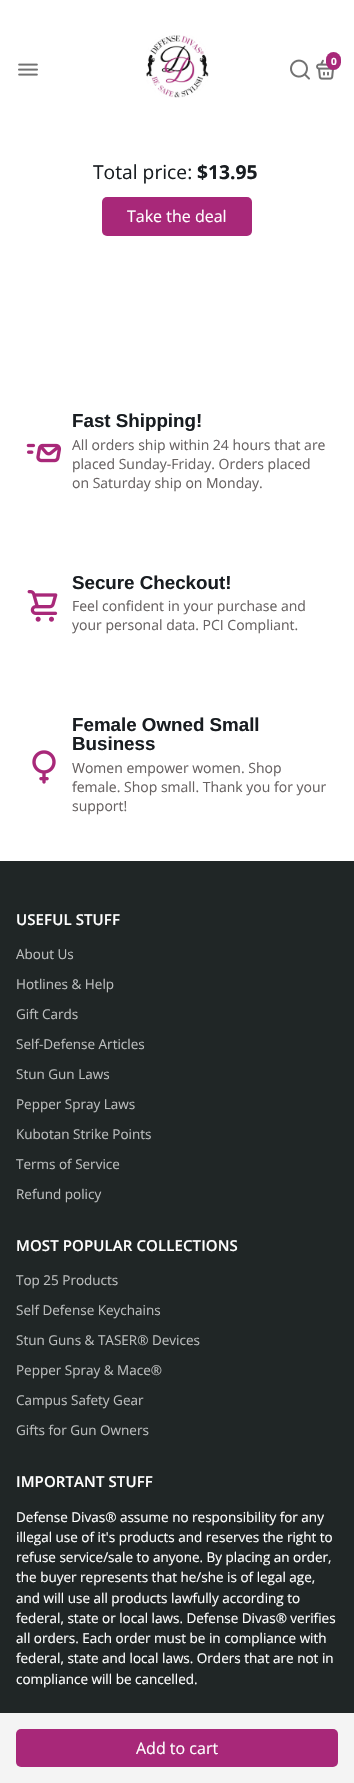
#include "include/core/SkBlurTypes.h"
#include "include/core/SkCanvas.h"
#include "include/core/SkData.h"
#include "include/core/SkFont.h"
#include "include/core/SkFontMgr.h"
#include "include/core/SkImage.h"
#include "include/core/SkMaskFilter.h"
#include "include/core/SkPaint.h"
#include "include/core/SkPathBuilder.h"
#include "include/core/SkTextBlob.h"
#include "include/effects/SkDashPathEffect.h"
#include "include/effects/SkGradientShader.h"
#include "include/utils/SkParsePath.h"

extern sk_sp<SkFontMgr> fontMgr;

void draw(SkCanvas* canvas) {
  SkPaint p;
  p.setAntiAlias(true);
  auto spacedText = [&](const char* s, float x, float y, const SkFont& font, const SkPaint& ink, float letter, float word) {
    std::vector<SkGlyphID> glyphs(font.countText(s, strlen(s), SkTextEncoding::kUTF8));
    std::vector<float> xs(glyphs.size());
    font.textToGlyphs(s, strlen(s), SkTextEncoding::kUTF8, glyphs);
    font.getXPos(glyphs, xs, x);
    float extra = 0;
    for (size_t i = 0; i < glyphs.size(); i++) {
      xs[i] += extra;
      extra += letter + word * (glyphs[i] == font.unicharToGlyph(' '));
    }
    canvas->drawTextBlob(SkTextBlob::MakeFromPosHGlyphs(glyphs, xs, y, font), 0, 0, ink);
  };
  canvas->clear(SK_ColorWHITE);
  canvas->drawImageRect(SkImages::DeferredFromEncodedData(SkData::MakeFromFileName("images/1.png")), SkRect::MakeLTRB(146, 35, 209, 98), SkSamplingOptions());
  canvas->drawImageRect(SkImages::DeferredFromEncodedData(SkData::MakeFromFileName("images/2.png")), SkRect::MakeLTRB(290, 59, 310, 80), SkSamplingOptions());
  canvas->drawImageRect(SkImages::DeferredFromEncodedData(SkData::MakeFromFileName("images/3.png")), SkRect::MakeLTRB(316, 59, 335, 80), SkSamplingOptions());
  p.setColor(SkColorSetRGB(168, 40, 121));
  canvas->drawRoundRect(SkRect::MakeLTRB(326, 52, 341, 70), 7.5f, 7.5f, p);
  canvas->drawImageRect(SkImages::DeferredFromEncodedData(SkData::MakeFromFileName("images/4.png")), SkRect::MakeLTRB(18, 63, 38, 76), SkSamplingOptions());
  canvas->drawRoundRect(SkRect::MakeLTRB(102, 197, 252, 236), 5, 5, p);
  canvas->drawImageRect(SkImages::DeferredFromEncodedData(SkData::MakeFromFileName("images/5.png")), SkRect::MakeLTRB(26, 443, 62, 463), SkSamplingOptions());
  canvas->drawImageRect(SkImages::DeferredFromEncodedData(SkData::MakeFromFileName("images/6.png")), SkRect::MakeLTRB(27, 590, 58, 622), SkSamplingOptions());
  canvas->drawImageRect(SkImages::DeferredFromEncodedData(SkData::MakeFromFileName("images/7.png")), SkRect::MakeLTRB(32, 750, 56, 784), SkSamplingOptions());
  p.setColor(SkColorSetRGB(32, 38, 38));
  canvas->drawRect(SkRect::MakeLTRB(0, 861, 354, 1713), p);
  p.setColor(SkColorSetRGB(244, 244, 244));
  canvas->drawRect(SkRect::MakeLTRB(0, 1713, 354, 1783), p);
  p.setColor(SkColorSetRGB(168, 40, 121));
  canvas->drawRoundRect(SkRect::MakeLTRB(16, 1729, 338, 1767), 5, 5, p);
  SkFont font1(fontMgr->matchFamilyStyle("Open Sans", SkFontStyle::Bold()), 10);
  font1.setSubpixel(true);
  p.setColor(SK_ColorWHITE);
  canvas->drawString("0", 331, 65, font1, p);
  SkFont font2(fontMgr->matchFamilyStyle("Open Sans", SkFontStyle::Normal()), 19.25f);
  font2.setSubpixel(true);
  p.setColor(SkColorSetRGB(25, 29, 33));
  canvas->drawString("Total price:", 93, 179, font2, p);
  SkFont font3(fontMgr->matchFamilyStyle("Open Sans", SkFontStyle::Bold()), 19.25f);
  font3.setSubpixel(true);
  canvas->drawString("$13.95", 197, 179, font3, p);
  SkFont font4(fontMgr->matchFamilyStyle("Open Sans", SkFontStyle::Normal()), 16);
  font4.setSubpixel(true);
  p.setColor(SK_ColorWHITE);
  canvas->drawString("Take the deal", 127, 222, font4, p);
  SkFont font5(fontMgr->matchFamilyStyle("Arimo", SkFontStyle::Bold()), 18.75f);
  font5.setSubpixel(true);
  p.setColor(SkColorSetRGB(25, 29, 33));
  canvas->drawString("Fast Shipping!", 72, 427, font5, p);
  SkFont font6(fontMgr->matchFamilyStyle("Open Sans", SkFontStyle::Normal()), 14);
  font6.setSubpixel(true);
  p.setColor(SkColorSetRGB(104, 99, 99));
  canvas->drawString("All orders ship within 24 hours that are", 72, 450, font6, p);
  canvas->drawString("placed Sunday-Friday. Orders placed", 72, 469, font6, p);
  canvas->drawString("on Saturday ship on Monday.", 72, 488, font6, p);
  p.setColor(SkColorSetRGB(25, 29, 33));
  canvas->drawString("Secure Checkout!", 72, 589, font5, p);
  p.setColor(SkColorSetRGB(104, 99, 99));
  canvas->drawString("Feel confident in your purchase and", 72, 611, font6, p);
  canvas->drawString("your personal data. PCI Compliant.", 72, 630, font6, p);
  p.setColor(SkColorSetRGB(25, 29, 33));
  canvas->drawString("Female Owned Small", 72, 731, font5, p);
  canvas->drawString("Business", 72, 750, font5, p);
  p.setColor(SkColorSetRGB(104, 99, 99));
  canvas->drawString("Women empower women. Shop", 72, 773, font6, p);
  canvas->drawString("female. Shop small. Thank you for your", 72, 792, font6, p);
  canvas->drawString("support!", 72, 811, font6, p);
  SkFont font7(fontMgr->matchFamilyStyle("Open Sans", SkFontStyle(600, SkFontStyle::kNormal_Width, SkFontStyle::kUpright_Slant)), 15);
  font7.setSubpixel(true);
  p.setColor(SK_ColorWHITE);
  spacedText("USEFUL STUFF", 16, 925, font7, p, 0.1f, 0);
  SkFont font8(fontMgr->matchFamilyStyle("Open Sans", SkFontStyle::Normal()), 13.5f);
  font8.setSubpixel(true);
  p.setColor(SkColorSetRGB(188, 190, 190));
  canvas->drawString("About Us", 16, 959, font8, p);
  canvas->drawString("Hotlines & Help", 16, 989, font8, p);
  canvas->drawString("Gift Cards", 16, 1019, font8, p);
  canvas->drawString("Self-Defense Articles", 16, 1049, font8, p);
  canvas->drawString("Stun Gun Laws", 16, 1079, font8, p);
  canvas->drawString("Pepper Spray Laws", 16, 1109, font8, p);
  canvas->drawString("Kubotan Strike Points", 16, 1139, font8, p);
  canvas->drawString("Terms of Service", 16, 1169, font8, p);
  canvas->drawString("Refund policy", 16, 1199, font8, p);
  p.setColor(SK_ColorWHITE);
  spacedText("MOST POPULAR COLLECTIONS", 16, 1251, font7, p, 0.1f, 0);
  p.setColor(SkColorSetRGB(188, 190, 190));
  canvas->drawString("Top 25 Products", 16, 1285, font8, p);
  canvas->drawString("Self Defense Keychains", 16, 1315, font8, p);
  canvas->drawString("Stun Guns & TASER® Devices", 16, 1345, font8, p);
  canvas->drawString("Pepper Spray & Mace®", 16, 1375, font8, p);
  canvas->drawString("Campus Safety Gear", 16, 1405, font8, p);
  canvas->drawString("Gifts for Gun Owners", 16, 1435, font8, p);
  p.setColor(SK_ColorWHITE);
  spacedText("IMPORTANT STUFF", 16, 1487, font7, p, 0.1f, 0);
  canvas->drawString("Defense Divas® assume no responsibility for any", 16, 1522, font8, p);
  canvas->drawString("illegal use of it's products and reserves the right to", 16, 1542, font8, p);
  canvas->drawString("refuse service/sale to anyone. By placing an order,", 16, 1562, font8, p);
  canvas->drawString("the buyer represents that he/she is of legal age,", 16, 1582, font8, p);
  canvas->drawString("and will use all products lawfully according to", 16, 1603, font8, p);
  canvas->drawString("federal, state or local laws. Defense Divas® verifies", 16, 1623, font8, p);
  canvas->drawString("all orders. Each order must be in compliance with", 16, 1643, font8, p);
  canvas->drawString("federal, state and local laws. Orders that are not in", 16, 1663, font8, p);
  canvas->drawString("compliance will be cancelled.", 16, 1684, font8, p);
  canvas->drawString("Add to cart", 136, 1754, font4, p);
}
